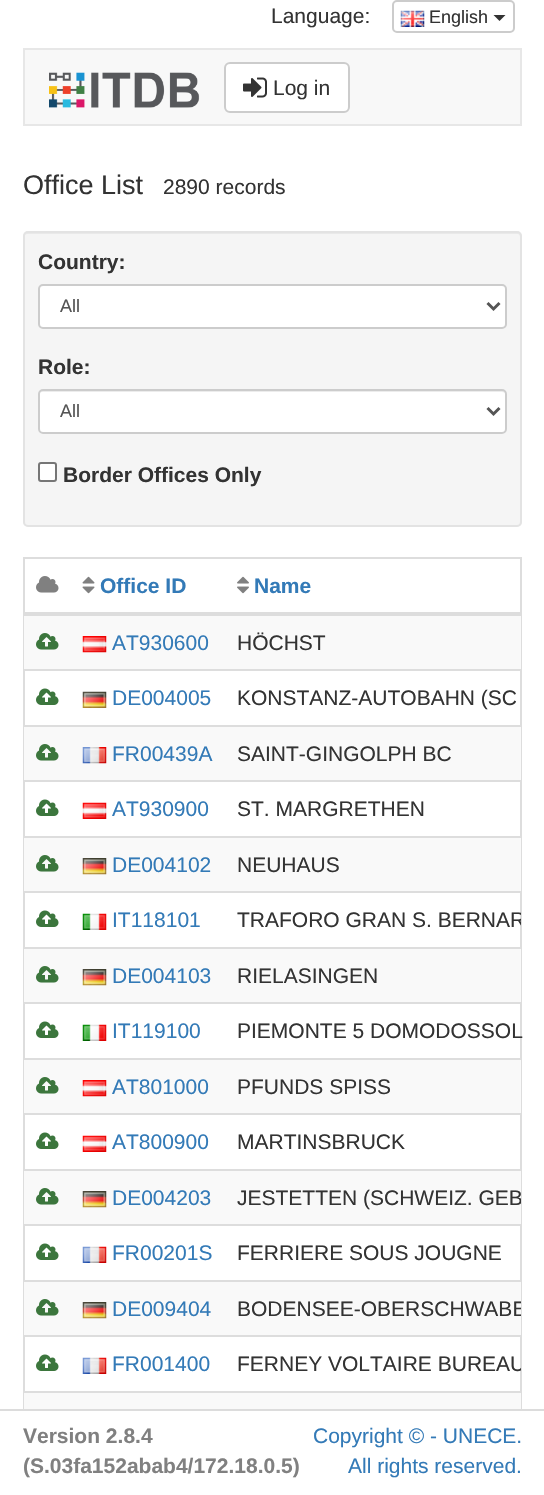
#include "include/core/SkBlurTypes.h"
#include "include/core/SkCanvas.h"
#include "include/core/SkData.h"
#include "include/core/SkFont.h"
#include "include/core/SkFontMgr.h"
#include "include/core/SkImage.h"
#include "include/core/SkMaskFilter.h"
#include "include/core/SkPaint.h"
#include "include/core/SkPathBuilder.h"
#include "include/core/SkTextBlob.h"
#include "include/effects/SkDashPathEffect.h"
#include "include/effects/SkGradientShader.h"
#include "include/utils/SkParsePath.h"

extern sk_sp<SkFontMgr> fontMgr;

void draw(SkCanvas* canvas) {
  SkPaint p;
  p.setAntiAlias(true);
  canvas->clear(SK_ColorWHITE);
  p.setStyle(SkPaint::kStroke_Style);
  p.setStrokeWidth(2);
  p.setColor(SkColorSetRGB(204, 204, 204));
  canvas->drawRoundRect(SkRect::MakeLTRB(393, 1, 514, 32), 4, 4, p);
  canvas->drawImageRect(SkImages::DeferredFromEncodedData(SkData::MakeFromFileName("images/1.png")), SkRect::MakeLTRB(400, 10, 425, 27), SkSamplingOptions());
  p.setStyle(SkPaint::kFill_Style);
  p.setColor(SkColorSetRGB(51, 51, 51));
  canvas->drawPath(SkPathBuilder().moveTo(493.5f, 15).lineTo(505.5f, 15).lineTo(499.5f, 21).close().detach(), p);
  p.setColor(SkColorSetRGB(248, 248, 248));
  canvas->drawRect(SkRect::MakeLTRB(24, 49, 521, 125), p);
  p.setStyle(SkPaint::kStroke_Style);
  p.setColor(SkColorSetRGB(231, 231, 231));
  canvas->drawRect(SkRect::MakeLTRB(24, 49, 521, 125), p);
  canvas->drawImageRect(SkImages::DeferredFromEncodedData(SkData::MakeFromFileName("images/2.png")), SkRect::MakeLTRB(49, 72, 200, 108), SkSamplingOptions());
  p.setStyle(SkPaint::kFill_Style);
  p.setColor(SK_ColorWHITE);
  canvas->drawRoundRect(SkRect::MakeLTRB(225, 63, 349, 112), 5, 5, p);
  p.setStyle(SkPaint::kStroke_Style);
  p.setColor(SkColorSetRGB(204, 204, 204));
  canvas->drawRoundRect(SkRect::MakeLTRB(225, 63, 349, 112), 5, 5, p);
  canvas->drawImageRect(SkImages::DeferredFromEncodedData(SkData::MakeFromFileName("images/3.png")), SkRect::MakeLTRB(243, 77, 267, 98), SkSamplingOptions());
  p.setStyle(SkPaint::kFill_Style);
  p.setColor(SkColorSetRGB(245, 245, 245));
  canvas->drawRoundRect(SkRect::MakeLTRB(23, 231, 522, 527), 5, 5, p);
  p.setColor(SkColorSetRGB(233, 233, 233));
  canvas->drawPath(SkPathBuilder().moveTo(27, 234).lineTo(518, 234).cubicTo(519, 234, 520, 235, 520, 237).lineTo(520, 524).cubicTo(521, 524, 521, 523, 521, 522).lineTo(521, 236).cubicTo(521, 234, 520, 233, 518, 233).lineTo(27, 233).cubicTo(25, 233, 24, 234, 24, 236).lineTo(24, 237).cubicTo(24, 235, 25, 234, 27, 234).close().detach(), p);
  p.setStyle(SkPaint::kStroke_Style);
  p.setColor(SkColorSetRGB(227, 227, 227));
  canvas->drawRoundRect(SkRect::MakeLTRB(24, 232, 521, 526), 4, 4, p);
  p.setStyle(SkPaint::kFill_Style);
  p.setColor(SK_ColorWHITE);
  canvas->drawRoundRect(SkRect::MakeLTRB(39, 285, 506, 328), 4, 4, p);
  p.setStyle(SkPaint::kStroke_Style);
  p.setColor(SkColorSetRGB(204, 204, 204));
  canvas->drawRoundRect(SkRect::MakeLTRB(39, 285, 506, 328), 4, 4, p);
  p.setStrokeWidth(3);
  p.setColor(SkColorSetRGB(85, 85, 85));
  canvas->drawPath(SkPathBuilder().moveTo(487.5f, 303).lineTo(493.5f, 309).lineTo(499.5f, 303).detach(), p);
  p.setStyle(SkPaint::kFill_Style);
  p.setColor(SK_ColorWHITE);
  canvas->drawRoundRect(SkRect::MakeLTRB(38, 389, 507, 434), 5, 5, p);
  p.setColor(SkColorSetRGB(236, 236, 236));
  canvas->drawPath(SkPathBuilder().moveTo(42, 392).lineTo(502, 392).cubicTo(504, 392, 506, 393, 506, 394).lineTo(506, 393).cubicTo(506, 391, 505, 390, 503, 390).lineTo(42, 390).cubicTo(40, 390, 39, 391, 39, 393).lineTo(39, 394).cubicTo(39, 393, 40, 392, 42, 392).close().detach(), p);
  p.setStyle(SkPaint::kStroke_Style);
  p.setStrokeWidth(2);
  p.setColor(SkColorSetRGB(204, 204, 204));
  canvas->drawRoundRect(SkRect::MakeLTRB(39, 390, 506, 433), 4, 4, p);
  p.setStrokeWidth(3);
  p.setColor(SkColorSetRGB(85, 85, 85));
  canvas->drawPath(SkPathBuilder().moveTo(487.5f, 408).lineTo(493.5f, 414).lineTo(499.5f, 408).detach(), p);
  p.setStyle(SkPaint::kFill_Style);
  p.setColor(SK_ColorWHITE);
  canvas->drawRoundRect(SkRect::MakeLTRB(39, 463, 56, 481), 2, 2, p);
  p.setStyle(SkPaint::kStroke_Style);
  p.setStrokeWidth(2);
  p.setColor(SkColorSetRGB(118, 118, 118));
  canvas->drawRoundRect(SkRect::MakeLTRB(39, 463, 56, 481), 2, 2, p);
  p.setColor(SkColorSetRGB(221, 221, 221));
  canvas->drawRect(SkRect::MakeLTRB(24, 558, 521, 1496), p);
  canvas->drawImageRect(SkImages::DeferredFromEncodedData(SkData::MakeFromFileName("images/4.png")), SkRect::MakeLTRB(36, 576, 59, 593), SkSamplingOptions());
  canvas->drawImageRect(SkImages::DeferredFromEncodedData(SkData::MakeFromFileName("images/5.png")), SkRect::MakeLTRB(82, 576, 95, 594), SkSamplingOptions());
  p.setStyle(SkPaint::kFill_Style);
  canvas->drawRect(SkRect::MakeLTRB(24, 612, 521, 615), p);
  canvas->drawImageRect(SkImages::DeferredFromEncodedData(SkData::MakeFromFileName("images/6.png")), SkRect::MakeLTRB(237, 576, 249, 594), SkSamplingOptions());
  p.setColor(SkColorSetRGB(249, 249, 249));
  canvas->drawRect(SkRect::MakeLTRB(24, 616, 521, 669), p);
  canvas->drawImageRect(SkImages::DeferredFromEncodedData(SkData::MakeFromFileName("images/7.png")), SkRect::MakeLTRB(36, 633, 59, 650), SkSamplingOptions());
  canvas->drawImageRect(SkImages::DeferredFromEncodedData(SkData::MakeFromFileName("images/8.png")), SkRect::MakeLTRB(82, 636, 107, 653), SkSamplingOptions());
  p.setColor(SkColorSetRGB(221, 221, 221));
  canvas->drawRect(SkRect::MakeLTRB(24, 615, 521, 616), p);
  canvas->drawImageRect(SkImages::DeferredFromEncodedData(SkData::MakeFromFileName("images/9.png")), SkRect::MakeLTRB(36, 688, 59, 705), SkSamplingOptions());
  canvas->drawImageRect(SkImages::DeferredFromEncodedData(SkData::MakeFromFileName("images/10.png")), SkRect::MakeLTRB(82, 691, 107, 708), SkSamplingOptions());
  canvas->drawRect(SkRect::MakeLTRB(24, 669, 521, 671), p);
  p.setColor(SkColorSetRGB(249, 249, 249));
  canvas->drawRect(SkRect::MakeLTRB(24, 727, 521, 780), p);
  canvas->drawImageRect(SkImages::DeferredFromEncodedData(SkData::MakeFromFileName("images/7.png")), SkRect::MakeLTRB(36, 744, 59, 761), SkSamplingOptions());
  canvas->drawImageRect(SkImages::DeferredFromEncodedData(SkData::MakeFromFileName("images/11.png")), SkRect::MakeLTRB(82, 747, 107, 764), SkSamplingOptions());
  p.setColor(SkColorSetRGB(221, 221, 221));
  canvas->drawRect(SkRect::MakeLTRB(24, 725, 521, 727), p);
  canvas->drawImageRect(SkImages::DeferredFromEncodedData(SkData::MakeFromFileName("images/9.png")), SkRect::MakeLTRB(36, 799, 59, 816), SkSamplingOptions());
  canvas->drawImageRect(SkImages::DeferredFromEncodedData(SkData::MakeFromFileName("images/12.png")), SkRect::MakeLTRB(82, 802, 107, 819), SkSamplingOptions());
  canvas->drawRect(SkRect::MakeLTRB(24, 780, 521, 782), p);
  p.setColor(SkColorSetRGB(249, 249, 249));
  canvas->drawRect(SkRect::MakeLTRB(24, 838, 521, 891), p);
  canvas->drawImageRect(SkImages::DeferredFromEncodedData(SkData::MakeFromFileName("images/7.png")), SkRect::MakeLTRB(36, 855, 59, 872), SkSamplingOptions());
  canvas->drawImageRect(SkImages::DeferredFromEncodedData(SkData::MakeFromFileName("images/13.png")), SkRect::MakeLTRB(82, 858, 107, 875), SkSamplingOptions());
  p.setColor(SkColorSetRGB(221, 221, 221));
  canvas->drawRect(SkRect::MakeLTRB(24, 836, 521, 838), p);
  canvas->drawImageRect(SkImages::DeferredFromEncodedData(SkData::MakeFromFileName("images/9.png")), SkRect::MakeLTRB(36, 910, 59, 927), SkSamplingOptions());
  canvas->drawImageRect(SkImages::DeferredFromEncodedData(SkData::MakeFromFileName("images/14.png")), SkRect::MakeLTRB(82, 913, 107, 930), SkSamplingOptions());
  canvas->drawRect(SkRect::MakeLTRB(24, 891, 521, 893), p);
  p.setColor(SkColorSetRGB(249, 249, 249));
  canvas->drawRect(SkRect::MakeLTRB(24, 949, 521, 1002), p);
  canvas->drawImageRect(SkImages::DeferredFromEncodedData(SkData::MakeFromFileName("images/7.png")), SkRect::MakeLTRB(36, 966, 59, 983), SkSamplingOptions());
  canvas->drawImageRect(SkImages::DeferredFromEncodedData(SkData::MakeFromFileName("images/13.png")), SkRect::MakeLTRB(82, 969, 107, 986), SkSamplingOptions());
  p.setColor(SkColorSetRGB(221, 221, 221));
  canvas->drawRect(SkRect::MakeLTRB(24, 947, 521, 949), p);
  canvas->drawImageRect(SkImages::DeferredFromEncodedData(SkData::MakeFromFileName("images/9.png")), SkRect::MakeLTRB(36, 1021, 59, 1038), SkSamplingOptions());
  canvas->drawImageRect(SkImages::DeferredFromEncodedData(SkData::MakeFromFileName("images/14.png")), SkRect::MakeLTRB(82, 1024, 107, 1041), SkSamplingOptions());
  canvas->drawRect(SkRect::MakeLTRB(24, 1002, 521, 1004), p);
  p.setColor(SkColorSetRGB(249, 249, 249));
  canvas->drawRect(SkRect::MakeLTRB(24, 1060, 521, 1113), p);
  canvas->drawImageRect(SkImages::DeferredFromEncodedData(SkData::MakeFromFileName("images/7.png")), SkRect::MakeLTRB(36, 1077, 59, 1094), SkSamplingOptions());
  canvas->drawImageRect(SkImages::DeferredFromEncodedData(SkData::MakeFromFileName("images/8.png")), SkRect::MakeLTRB(82, 1080, 107, 1097), SkSamplingOptions());
  p.setColor(SkColorSetRGB(221, 221, 221));
  canvas->drawRect(SkRect::MakeLTRB(24, 1058, 521, 1060), p);
  canvas->drawImageRect(SkImages::DeferredFromEncodedData(SkData::MakeFromFileName("images/9.png")), SkRect::MakeLTRB(36, 1132, 59, 1149), SkSamplingOptions());
  canvas->drawImageRect(SkImages::DeferredFromEncodedData(SkData::MakeFromFileName("images/12.png")), SkRect::MakeLTRB(82, 1135, 107, 1152), SkSamplingOptions());
  canvas->drawRect(SkRect::MakeLTRB(24, 1113, 521, 1115), p);
  p.setColor(SkColorSetRGB(249, 249, 249));
  canvas->drawRect(SkRect::MakeLTRB(24, 1171, 521, 1224), p);
  canvas->drawImageRect(SkImages::DeferredFromEncodedData(SkData::MakeFromFileName("images/7.png")), SkRect::MakeLTRB(36, 1188, 59, 1205), SkSamplingOptions());
  canvas->drawImageRect(SkImages::DeferredFromEncodedData(SkData::MakeFromFileName("images/13.png")), SkRect::MakeLTRB(82, 1191, 107, 1208), SkSamplingOptions());
  p.setColor(SkColorSetRGB(221, 221, 221));
  canvas->drawRect(SkRect::MakeLTRB(24, 1169, 521, 1171), p);
  canvas->drawImageRect(SkImages::DeferredFromEncodedData(SkData::MakeFromFileName("images/9.png")), SkRect::MakeLTRB(36, 1243, 59, 1260), SkSamplingOptions());
  canvas->drawImageRect(SkImages::DeferredFromEncodedData(SkData::MakeFromFileName("images/15.png")), SkRect::MakeLTRB(82, 1246, 107, 1263), SkSamplingOptions());
  canvas->drawRect(SkRect::MakeLTRB(24, 1224, 521, 1226), p);
  p.setColor(SkColorSetRGB(249, 249, 249));
  canvas->drawRect(SkRect::MakeLTRB(24, 1282, 521, 1335), p);
  canvas->drawImageRect(SkImages::DeferredFromEncodedData(SkData::MakeFromFileName("images/7.png")), SkRect::MakeLTRB(36, 1299, 59, 1316), SkSamplingOptions());
  canvas->drawImageRect(SkImages::DeferredFromEncodedData(SkData::MakeFromFileName("images/13.png")), SkRect::MakeLTRB(82, 1302, 107, 1319), SkSamplingOptions());
  p.setColor(SkColorSetRGB(221, 221, 221));
  canvas->drawRect(SkRect::MakeLTRB(24, 1280, 521, 1282), p);
  canvas->drawImageRect(SkImages::DeferredFromEncodedData(SkData::MakeFromFileName("images/9.png")), SkRect::MakeLTRB(36, 1354, 59, 1371), SkSamplingOptions());
  canvas->drawImageRect(SkImages::DeferredFromEncodedData(SkData::MakeFromFileName("images/15.png")), SkRect::MakeLTRB(82, 1357, 107, 1374), SkSamplingOptions());
  canvas->drawRect(SkRect::MakeLTRB(24, 1335, 521, 1337), p);
  p.setColor(SkColorSetRGB(249, 249, 249));
  canvas->drawRect(SkRect::MakeLTRB(24, 1393, 521, 1409), p);
  p.setColor(SkColorSetRGB(221, 221, 221));
  canvas->drawRect(SkRect::MakeLTRB(24, 1391, 521, 1393), p);
  p.setColor(SK_ColorWHITE);
  canvas->drawRect(SkRect::MakeLTRB(23, 1411, 522, 1495), p);
  p.setColor(SkColorSetRGB(220, 220, 220));
  canvas->drawRect(SkRect::MakeLTRB(0, 1409, 544, 1411), p);
  SkFont font1(fontMgr->matchFamilyStyle("Liberation Sans", SkFontStyle::Normal()), 21);
  font1.setSubpixel(true);
  p.setColor(SkColorSetRGB(51, 51, 51));
  canvas->drawString("Language:", 271, 23, font1, p);
  SkFont font2(fontMgr->matchFamilyStyle("Liberation Sans", SkFontStyle::Normal()), 18);
  font2.setSubpixel(true);
  canvas->drawString("English", 429, 23, font2, p);
  canvas->drawString("Log in", 273, 95, font1, p);
  SkFont font3(fontMgr->matchFamilyStyle("Liberation Sans", SkFontStyle::Normal()), 27);
  font3.setSubpixel(true);
  canvas->drawString("Office List", 23, 194, font3, p);
  canvas->drawString("2890 records", 163, 194, font1, p);
  SkFont font4(fontMgr->matchFamilyStyle("Liberation Sans", SkFontStyle::Bold()), 21);
  font4.setSubpixel(true);
  canvas->drawString("Country:", 38, 269, font4, p);
  p.setColor(SkColorSetRGB(85, 85, 85));
  canvas->drawString("All", 60, 312, font2, p);
  p.setColor(SkColorSetRGB(51, 51, 51));
  canvas->drawString("Role:", 38, 374, font4, p);
  p.setColor(SkColorSetRGB(85, 85, 85));
  canvas->drawString("All", 60, 417, font2, p);
  p.setColor(SkColorSetRGB(51, 51, 51));
  canvas->drawString("Border Offices Only", 63, 482, font4, p);
  p.setColor(SkColorSetRGB(51, 122, 183));
  canvas->drawString("Office ID", 100, 593, font4, p);
  canvas->drawString("Name", 254, 593, font4, p);
  canvas->drawString("AT930600", 112, 650, font1, p);
  p.setColor(SkColorSetRGB(51, 51, 51));
  canvas->drawString("HÖCHST", 237, 650, font1, p);
  p.setColor(SkColorSetRGB(51, 122, 183));
  canvas->drawString("DE004005", 112, 705, font1, p);
  p.setColor(SkColorSetRGB(51, 51, 51));
  canvas->drawString("KONSTANZ-AUTOBAHN (SC", 237, 705, font1, p);
  p.setColor(SkColorSetRGB(51, 122, 183));
  canvas->drawString("FR00439A", 112, 761, font1, p);
  p.setColor(SkColorSetRGB(51, 51, 51));
  canvas->drawString("SAINT-GINGOLPH BC", 237, 761, font1, p);
  p.setColor(SkColorSetRGB(51, 122, 183));
  canvas->drawString("AT930900", 112, 816, font1, p);
  p.setColor(SkColorSetRGB(51, 51, 51));
  canvas->drawString("ST. MARGRETHEN", 237, 816, font1, p);
  p.setColor(SkColorSetRGB(51, 122, 183));
  canvas->drawString("DE004102", 112, 872, font1, p);
  p.setColor(SkColorSetRGB(51, 51, 51));
  canvas->drawString("NEUHAUS", 237, 872, font1, p);
  p.setColor(SkColorSetRGB(51, 122, 183));
  canvas->drawString("IT118101", 112, 927, font1, p);
  canvas->save();
  canvas->clipRect(SkRect::MakeLTRB(24, 558, 521, 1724));
  p.setColor(SkColorSetRGB(51, 51, 51));
  canvas->drawString("TRAFORO GRAN S. BERNAR", 237, 927, font1, p);
  canvas->restore();
  p.setColor(SkColorSetRGB(51, 122, 183));
  canvas->drawString("DE004103", 112, 983, font1, p);
  p.setColor(SkColorSetRGB(51, 51, 51));
  canvas->drawString("RIELASINGEN", 237, 983, font1, p);
  p.setColor(SkColorSetRGB(51, 122, 183));
  canvas->drawString("IT119100", 112, 1038, font1, p);
  p.setColor(SkColorSetRGB(51, 51, 51));
  canvas->drawString("PIEMONTE 5 DOMODOSSOL", 237, 1038, font1, p);
  p.setColor(SkColorSetRGB(51, 122, 183));
  canvas->drawString("AT801000", 112, 1094, font1, p);
  p.setColor(SkColorSetRGB(51, 51, 51));
  canvas->drawString("PFUNDS SPISS", 237, 1094, font1, p);
  p.setColor(SkColorSetRGB(51, 122, 183));
  canvas->drawString("AT800900", 112, 1149, font1, p);
  p.setColor(SkColorSetRGB(51, 51, 51));
  canvas->drawString("MARTINSBRUCK", 237, 1149, font1, p);
  p.setColor(SkColorSetRGB(51, 122, 183));
  canvas->drawString("DE004203", 112, 1205, font1, p);
  canvas->save();
  canvas->clipRect(SkRect::MakeLTRB(24, 558, 521, 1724));
  p.setColor(SkColorSetRGB(51, 51, 51));
  canvas->drawString("JESTETTEN (SCHWEIZ. GEB", 237, 1205, font1, p);
  canvas->restore();
  p.setColor(SkColorSetRGB(51, 122, 183));
  canvas->drawString("FR00201S", 112, 1260, font1, p);
  p.setColor(SkColorSetRGB(51, 51, 51));
  canvas->drawString("FERRIERE SOUS JOUGNE", 237, 1260, font1, p);
  p.setColor(SkColorSetRGB(51, 122, 183));
  canvas->drawString("DE009404", 112, 1316, font1, p);
  canvas->save();
  canvas->clipRect(SkRect::MakeLTRB(24, 558, 521, 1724));
  p.setColor(SkColorSetRGB(51, 51, 51));
  canvas->drawString("BODENSEE-OBERSCHWABE", 237, 1316, font1, p);
  canvas->restore();
  p.setColor(SkColorSetRGB(51, 122, 183));
  canvas->drawString("FR001400", 112, 1371, font1, p);
  canvas->save();
  canvas->clipRect(SkRect::MakeLTRB(24, 558, 521, 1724));
  p.setColor(SkColorSetRGB(51, 51, 51));
  canvas->drawString("FERNEY VOLTAIRE BUREAU", 237, 1371, font1, p);
  canvas->restore();
  p.setColor(SkColorSetRGB(128, 128, 128));
  canvas->drawString("Version 2.8.4", 23, 1443, font4, p);
  canvas->drawString("(S.03fa152abab4/172.18.0.5)", 23, 1473, font4, p);
  p.setColor(SkColorSetRGB(51, 122, 183));
  canvas->drawString("Copyright © - UNECE.", 313, 1443, font1, p);
  canvas->drawString("All rights reserved.", 348, 1473, font1, p);
}
